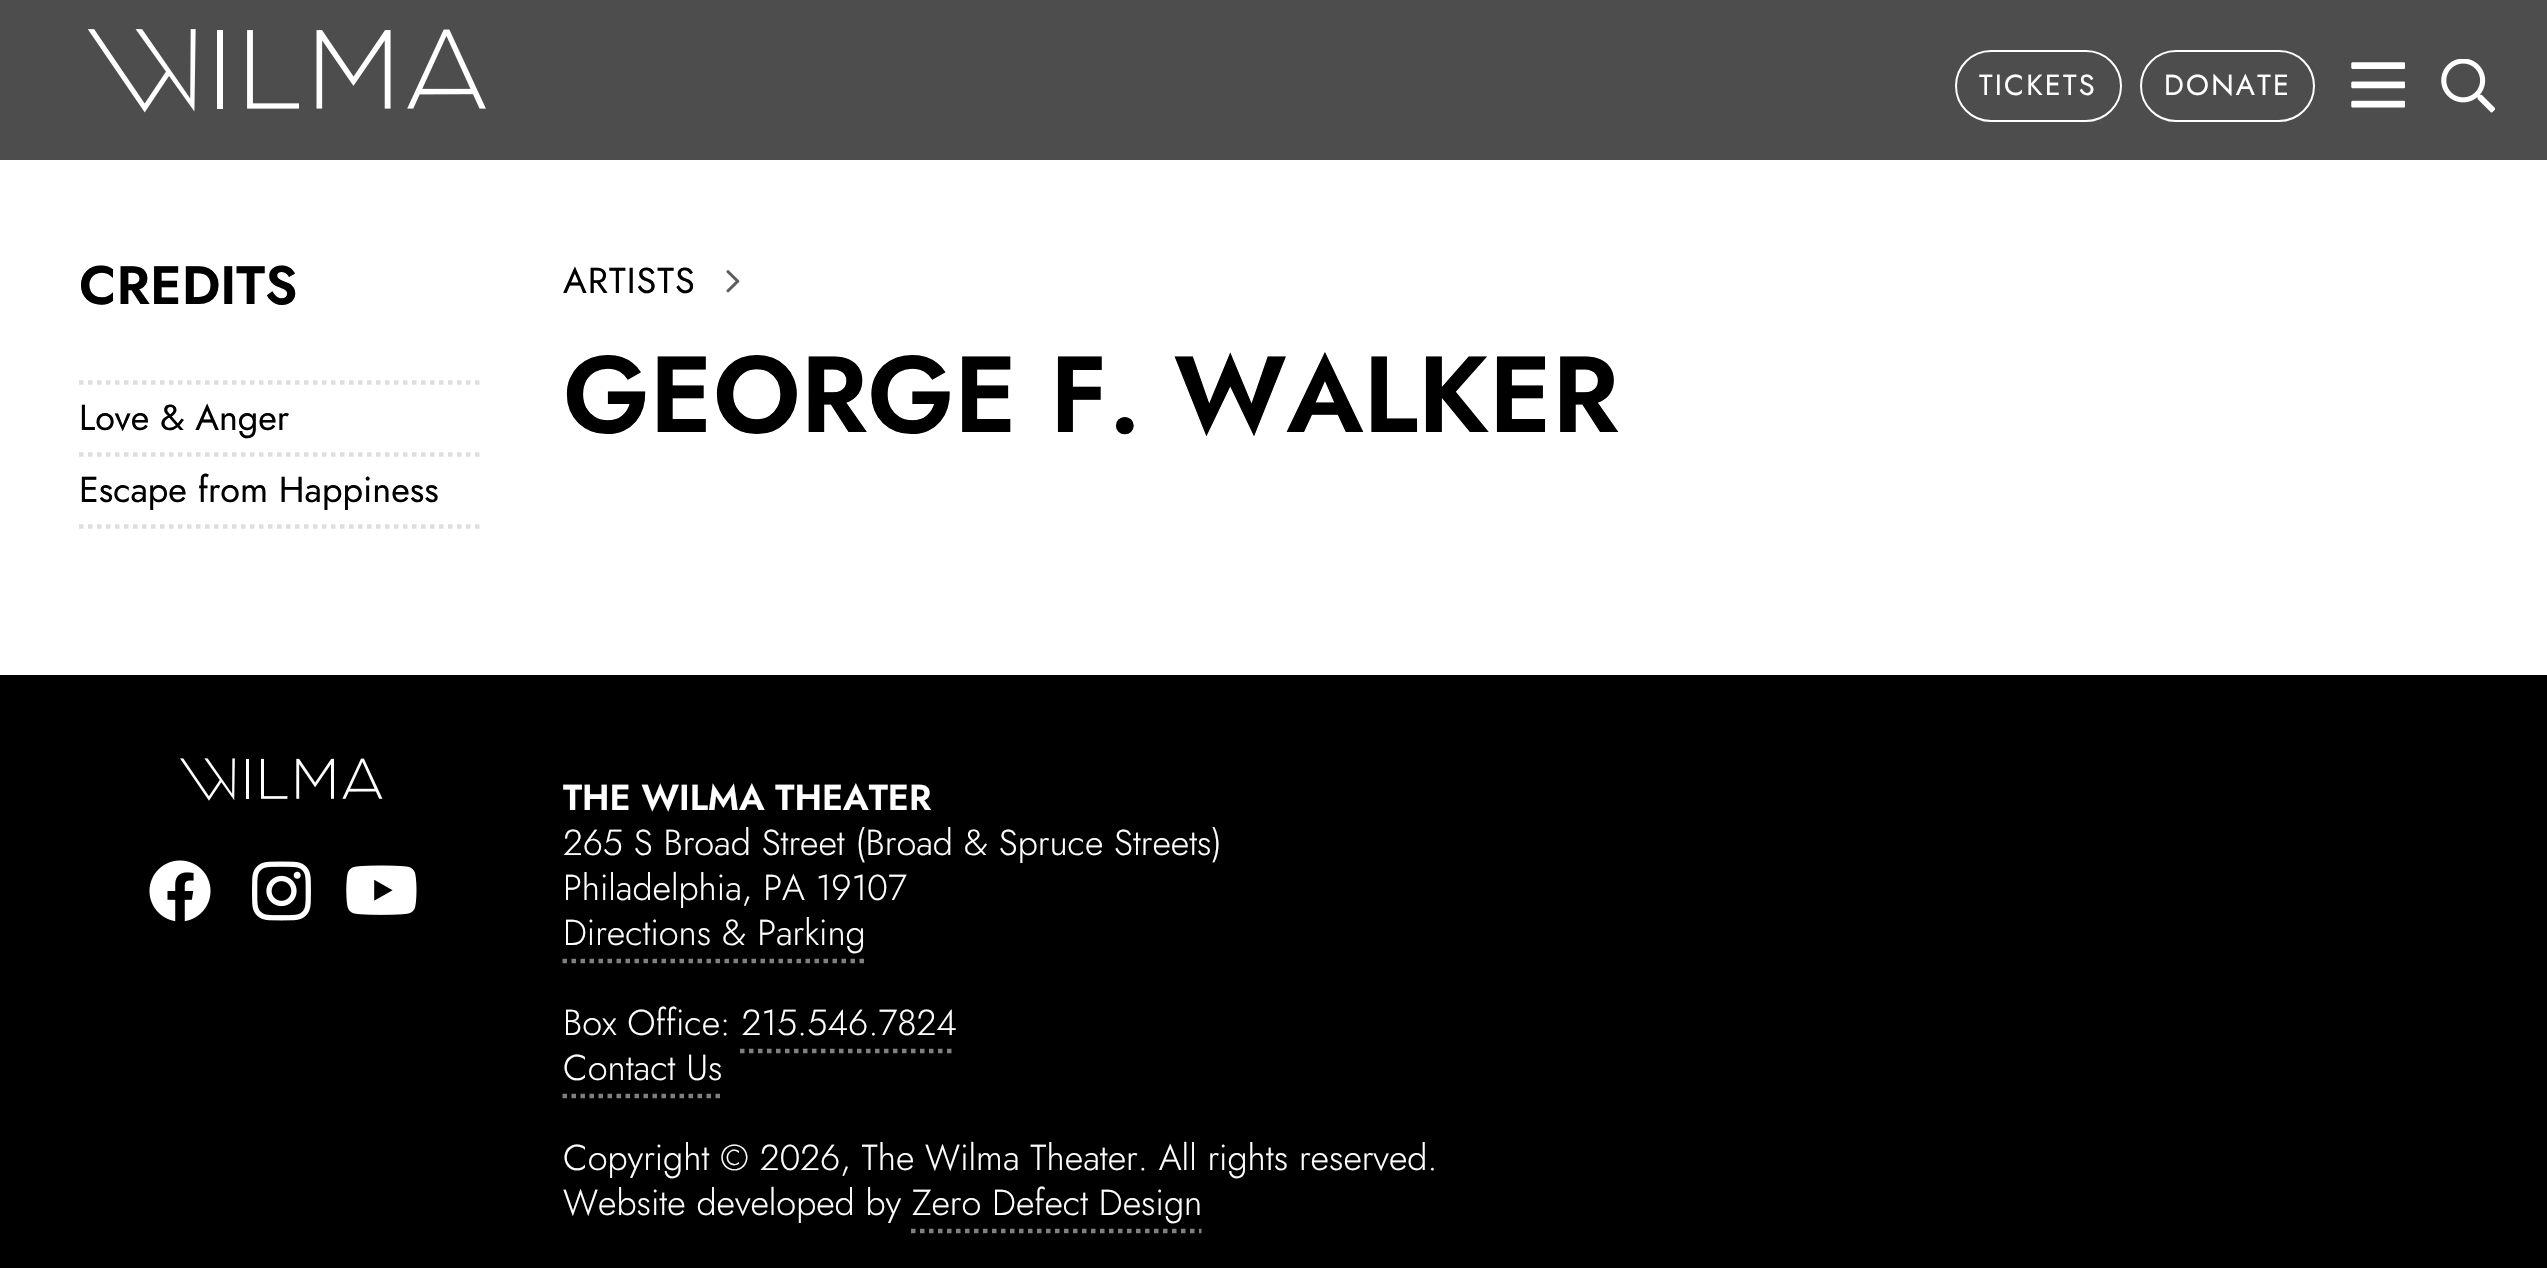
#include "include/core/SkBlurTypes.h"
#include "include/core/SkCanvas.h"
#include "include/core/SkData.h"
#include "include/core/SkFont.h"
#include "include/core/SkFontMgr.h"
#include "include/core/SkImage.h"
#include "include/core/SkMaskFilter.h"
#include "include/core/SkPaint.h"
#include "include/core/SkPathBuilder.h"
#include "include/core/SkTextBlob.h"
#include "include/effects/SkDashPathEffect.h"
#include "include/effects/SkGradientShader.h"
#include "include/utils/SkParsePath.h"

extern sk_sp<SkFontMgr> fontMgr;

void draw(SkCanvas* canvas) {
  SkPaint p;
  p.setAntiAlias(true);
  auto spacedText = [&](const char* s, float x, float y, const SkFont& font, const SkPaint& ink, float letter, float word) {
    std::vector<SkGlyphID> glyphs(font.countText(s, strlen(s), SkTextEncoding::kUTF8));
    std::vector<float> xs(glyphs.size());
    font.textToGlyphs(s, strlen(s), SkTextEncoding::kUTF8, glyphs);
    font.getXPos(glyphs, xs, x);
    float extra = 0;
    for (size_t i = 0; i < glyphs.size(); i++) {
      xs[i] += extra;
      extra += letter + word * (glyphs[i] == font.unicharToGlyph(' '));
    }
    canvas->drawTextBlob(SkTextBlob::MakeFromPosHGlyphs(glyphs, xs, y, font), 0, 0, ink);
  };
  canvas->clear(SK_ColorBLACK);
  p.setColor(SkColorSetRGB(77, 77, 77));
  canvas->drawRect(SkRect::MakeLTRB(0, 0, 2547, 160), p);
  canvas->drawImageRect(SkImages::DeferredFromEncodedData(SkData::MakeFromFileName("images/1.png")), SkRect::MakeLTRB(88, 29, 486, 113), SkSamplingOptions());
  p.setStyle(SkPaint::kStroke_Style);
  p.setStrokeWidth(2);
  p.setColor(SK_ColorWHITE);
  canvas->drawRoundRect(SkRect::MakeLTRB(1956, 51, 2121, 121), 35, 35, p);
  canvas->drawRoundRect(SkRect::MakeLTRB(2141, 51, 2314, 121), 35, 35, p);
  canvas->drawImageRect(SkImages::DeferredFromEncodedData(SkData::MakeFromFileName("images/2.png")), SkRect::MakeLTRB(2351, 62, 2405, 108), SkSamplingOptions());
  canvas->drawImageRect(SkImages::DeferredFromEncodedData(SkData::MakeFromFileName("images/3.png")), SkRect::MakeLTRB(2441, 59, 2495, 113), SkSamplingOptions());
  p.setStyle(SkPaint::kFill_Style);
  canvas->drawRect(SkRect::MakeLTRB(0, 160, 2547, 675), p);
  p.setStyle(SkPaint::kStroke_Style);
  p.setStrokeWidth(4.5f);
  p.setColor(SkColorSetRGB(222, 222, 222));
  p.setPathEffect(SkDashPathEffect::Make({{4.5f, 4.5f}}, 0));
  canvas->drawPath(SkPathBuilder().moveTo(79, 382.5f).lineTo(484, 382.5f).detach(), p);
  p.setPathEffect(nullptr);
  p.setPathEffect(SkDashPathEffect::Make({{4.5f, 4.5f}}, 0));
  canvas->drawPath(SkPathBuilder().moveTo(79, 454.5f).lineTo(484, 454.5f).detach(), p);
  p.setPathEffect(nullptr);
  p.setPathEffect(SkDashPathEffect::Make({{4.5f, 4.5f}}, 0));
  canvas->drawPath(SkPathBuilder().moveTo(79, 526.5f).lineTo(484, 526.5f).detach(), p);
  p.setPathEffect(nullptr);
  canvas->drawImageRect(SkImages::DeferredFromEncodedData(SkData::MakeFromFileName("images/4.png")), SkRect::MakeLTRB(726, 270, 740, 293), SkSamplingOptions());
  canvas->drawImageRect(SkImages::DeferredFromEncodedData(SkData::MakeFromFileName("images/5.png")), SkRect::MakeLTRB(180, 758, 383, 801), SkSamplingOptions());
  canvas->drawImageRect(SkImages::DeferredFromEncodedData(SkData::MakeFromFileName("images/6.png")), SkRect::MakeLTRB(149, 860, 211, 922), SkSamplingOptions());
  canvas->drawImageRect(SkImages::DeferredFromEncodedData(SkData::MakeFromFileName("images/7.png")), SkRect::MakeLTRB(252, 861, 311, 921), SkSamplingOptions());
  canvas->drawImageRect(SkImages::DeferredFromEncodedData(SkData::MakeFromFileName("images/8.png")), SkRect::MakeLTRB(346, 865, 417, 915), SkSamplingOptions());
  p.setColor(SkColorSetRGB(128, 128, 128));
  p.setPathEffect(SkDashPathEffect::Make({{4.5f, 4.5f}}, 0));
  canvas->drawPath(SkPathBuilder().moveTo(562.5f, 961).lineTo(866, 961).detach(), p);
  p.setPathEffect(nullptr);
  p.setPathEffect(SkDashPathEffect::Make({{4.5f, 4.5f}}, 0));
  canvas->drawPath(SkPathBuilder().moveTo(740, 1051).lineTo(956, 1051).detach(), p);
  p.setPathEffect(nullptr);
  p.setPathEffect(SkDashPathEffect::Make({{4.5f, 4.5f}}, 0));
  canvas->drawPath(SkPathBuilder().moveTo(562.5f, 1096).lineTo(722, 1096).detach(), p);
  p.setPathEffect(nullptr);
  p.setPathEffect(SkDashPathEffect::Make({{4.5f, 4.5f}}, 0));
  canvas->drawPath(SkPathBuilder().moveTo(911, 1231).lineTo(1201.5f, 1231).detach(), p);
  p.setPathEffect(nullptr);
  SkFont font1(fontMgr->matchFamilyStyle("Jost", SkFontStyle::Normal()), 29);
  font1.setSubpixel(true);
  p.setStyle(SkPaint::kFill_Style);
  p.setColor(SK_ColorWHITE);
  spacedText("TICKETS", 1979, 95, font1, p, 2.25f, 0);
  spacedText("DONATE", 2164, 95, font1, p, 2.25f, 0);
  SkFont font2(fontMgr->matchFamilyStyle("Jost", SkFontStyle(600, SkFontStyle::kNormal_Width, SkFontStyle::kUpright_Slant)), 54);
  font2.setSubpixel(true);
  p.setColor(SK_ColorBLACK);
  canvas->drawString("CREDITS", 79, 304, font2, p);
  SkFont font3(fontMgr->matchFamilyStyle("Jost", SkFontStyle::Normal()), 36);
  font3.setSubpixel(true);
  canvas->drawString("Love & Anger", 79, 430, font3, p);
  canvas->drawString("Escape from Happiness", 79, 502, font3, p);
  spacedText("ARTISTS", 563, 293, font3, p, 1, 0);
  SkFont font4(fontMgr->matchFamilyStyle("Jost", SkFontStyle(600, SkFontStyle::kNormal_Width, SkFontStyle::kUpright_Slant)), 108);
  font4.setSubpixel(true);
  canvas->drawString("GEORGE F. WALKER", 563, 432, font4, p);
  SkFont font5(fontMgr->matchFamilyStyle("Jost", SkFontStyle(600, SkFontStyle::kNormal_Width, SkFontStyle::kUpright_Slant)), 36);
  font5.setSubpixel(true);
  p.setColor(SK_ColorWHITE);
  canvas->drawString("THE WILMA THEATER", 563, 810, font5, p);
  SkFont font6(fontMgr->matchFamilyStyle("Jost", SkFontStyle(300, SkFontStyle::kNormal_Width, SkFontStyle::kUpright_Slant)), 36);
  font6.setSubpixel(true);
  canvas->drawString("265 S Broad Street (Broad & Spruce Streets)", 563, 855, font6, p);
  canvas->drawString("Philadelphia, PA 19107", 563, 900, font6, p);
  canvas->drawString("Directions & Parking", 563, 945, font6, p);
  canvas->drawString("Box Office: 215.546.7824", 563, 1035, font6, p);
  canvas->drawString("Contact Us", 563, 1080, font6, p);
  canvas->drawString("Copyright © 2026, The Wilma Theater. All rights reserved.", 563, 1170, font6, p);
  canvas->drawString("Website developed by Zero Defect Design", 563, 1215, font6, p);
}
